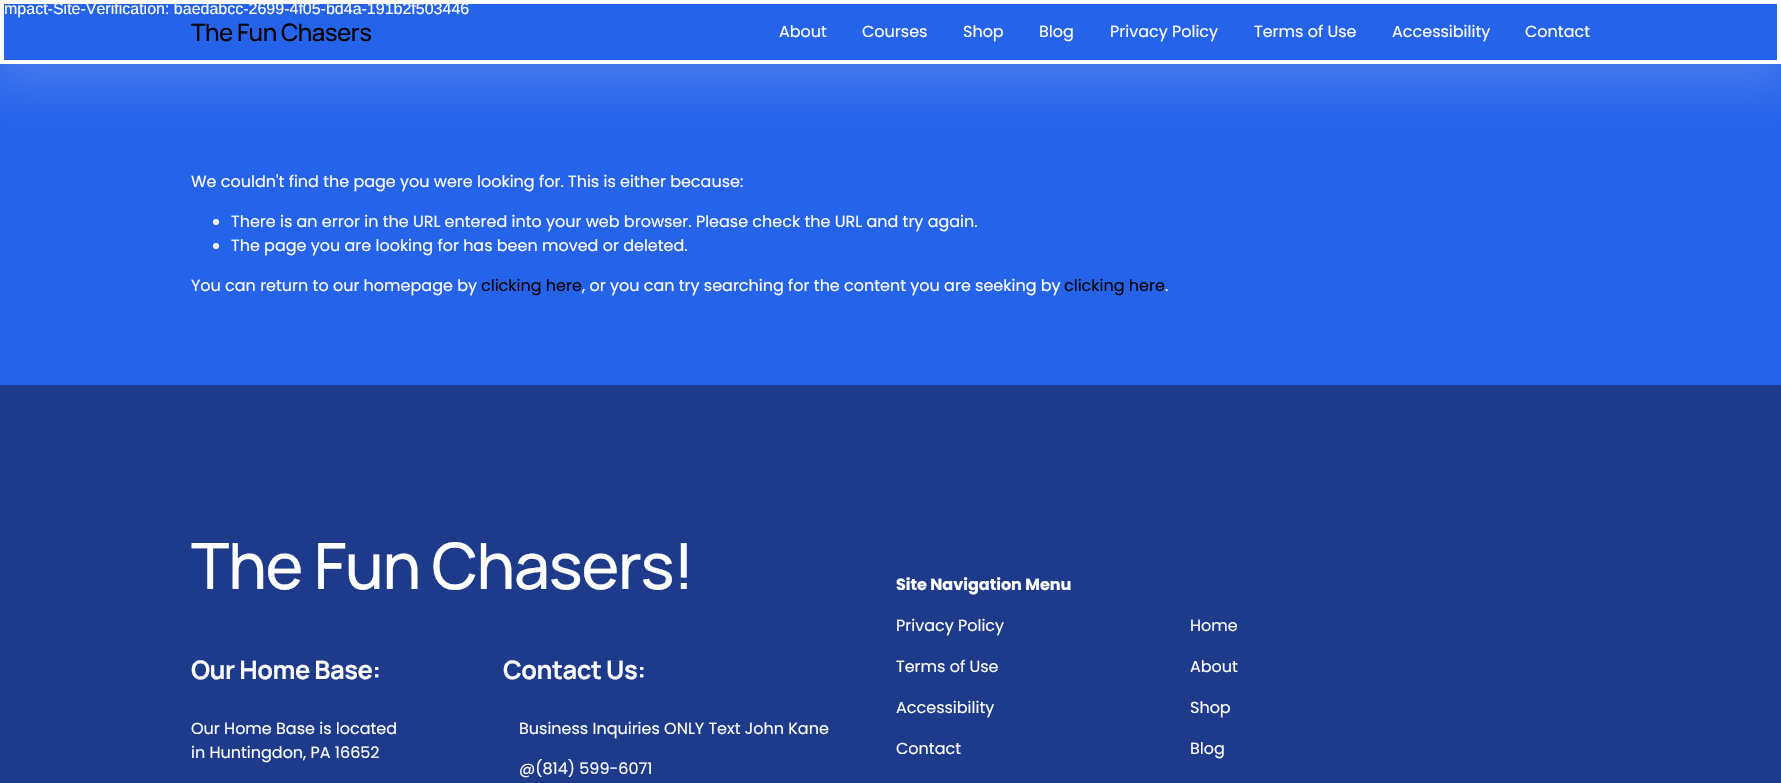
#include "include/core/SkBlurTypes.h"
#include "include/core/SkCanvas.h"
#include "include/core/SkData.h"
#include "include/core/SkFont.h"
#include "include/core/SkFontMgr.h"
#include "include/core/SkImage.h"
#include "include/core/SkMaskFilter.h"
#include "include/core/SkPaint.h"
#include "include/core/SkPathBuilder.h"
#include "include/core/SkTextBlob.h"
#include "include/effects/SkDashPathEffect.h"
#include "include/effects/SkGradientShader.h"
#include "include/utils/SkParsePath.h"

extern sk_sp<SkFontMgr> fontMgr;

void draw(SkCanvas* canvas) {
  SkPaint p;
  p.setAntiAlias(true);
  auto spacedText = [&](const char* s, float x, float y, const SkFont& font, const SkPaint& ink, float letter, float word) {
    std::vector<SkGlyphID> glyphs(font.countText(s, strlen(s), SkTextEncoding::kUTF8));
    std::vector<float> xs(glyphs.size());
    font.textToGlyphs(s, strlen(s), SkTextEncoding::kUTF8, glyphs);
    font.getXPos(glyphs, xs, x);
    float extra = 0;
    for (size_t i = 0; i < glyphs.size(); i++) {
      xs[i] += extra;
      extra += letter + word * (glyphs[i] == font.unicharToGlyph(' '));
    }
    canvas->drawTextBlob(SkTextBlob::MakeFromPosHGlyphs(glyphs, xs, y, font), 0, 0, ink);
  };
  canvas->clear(SkColorSetRGB(37, 99, 235));
  canvas->save();
  canvas->clipRect(SkRect::MakeLTRB(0, 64, 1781, 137));
  p.setColor(SkColorSetRGB(70, 122, 238));
  p.setMaskFilter(SkMaskFilter::MakeBlur(kNormal_SkBlurStyle, 24));
  canvas->drawRect(SkRect::MakeLTRB(-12, 0, 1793, 88), p);
  p.setMaskFilter(nullptr);
  canvas->restore();
  p.setStyle(SkPaint::kStroke_Style);
  p.setStrokeWidth(4);
  p.setColor(SK_ColorWHITE);
  canvas->drawRect(SkRect::MakeLTRB(2, 2, 1779, 62), p);
  p.setStyle(SkPaint::kFill_Style);
  canvas->drawCircle(216, 222, 3, p);
  canvas->drawCircle(216, 246, 3, p);
  p.setColor(SkColorSetRGB(30, 58, 138));
  canvas->drawRect(SkRect::MakeLTRB(0, 385, 1781, 783), p);
  SkFont font1(fontMgr->matchFamilyStyle("Liberation Sans", SkFontStyle::Normal()), 16);
  font1.setSubpixel(true);
  p.setColor(SK_ColorWHITE);
  canvas->drawString("mpact-Site-Verification: baedabcc-2699-4f05-bd4a-191b2f503446", 4, 14, font1, p);
  SkFont font2(fontMgr->matchFamilyStyle("Manrope", SkFontStyle(500, SkFontStyle::kNormal_Width, SkFontStyle::kUpright_Slant)), 24);
  font2.setSubpixel(true);
  p.setColor(SK_ColorBLACK);
  spacedText("The Fun Chasers", 191, 41, font2, p, -0.5f, 0);
  SkFont font3(fontMgr->matchFamilyStyle("Poppins", SkFontStyle::Normal()), 16);
  font3.setSubpixel(true);
  p.setColor(SK_ColorWHITE);
  canvas->drawString("About", 779, 37, font3, p);
  canvas->drawString("Courses", 862, 37, font3, p);
  canvas->drawString("Shop", 963, 37, font3, p);
  canvas->drawString("Blog", 1039, 37, font3, p);
  canvas->drawString("Privacy Policy", 1110, 37, font3, p);
  canvas->drawString("Terms of Use", 1254, 37, font3, p);
  canvas->drawString("Accessibility", 1392, 37, font3, p);
  canvas->drawString("Contact", 1525, 37, font3, p);
  canvas->drawString("We couldn't find the page you were looking for. This is either because:", 191, 187, font3, p);
  canvas->drawString("There is an error in the URL entered into your web browser. Please check the URL and try again.", 231, 227, font3, p);
  canvas->drawString("The page you are looking for has been moved or deleted.", 231, 251, font3, p);
  canvas->drawString("You can return to our homepage by", 191, 291, font3, p);
  p.setColor(SK_ColorBLACK);
  canvas->drawString("clicking here", 481, 291, font3, p);
  p.setColor(SK_ColorWHITE);
  canvas->drawString(", or you can try searching for the content you are seeking by", 582, 291, font3, p);
  p.setColor(SK_ColorBLACK);
  canvas->drawString("clicking here", 1064, 291, font3, p);
  p.setColor(SK_ColorWHITE);
  canvas->drawString(".", 1165, 291, font3, p);
  SkFont font4(fontMgr->matchFamilyStyle("Manrope", SkFontStyle(500, SkFontStyle::kNormal_Width, SkFontStyle::kUpright_Slant)), 64);
  font4.setSubpixel(true);
  spacedText("The Fun Chasers!", 191, 589, font4, p, -1.25f, 0);
  SkFont font5(fontMgr->matchFamilyStyle("Poppins", SkFontStyle::Bold()), 16);
  font5.setSubpixel(true);
  canvas->drawString("Site Navigation Menu", 896, 590, font5, p);
  canvas->drawString("Privacy Policy", 896, 631, font3, p);
  canvas->drawString("Home", 1190, 631, font3, p);
  SkFont font6(fontMgr->matchFamilyStyle("Manrope", SkFontStyle::Bold()), 25.5f);
  font6.setSubpixel(true);
  spacedText("Our Home Base:", 191, 679, font6, p, -0.5f, 0);
  canvas->drawString("Our Home Base is located", 191, 734, font3, p);
  canvas->drawString("in Huntingdon, PA 16652", 191, 758, font3, p);
  spacedText("Contact Us:", 503, 679, font6, p, -0.5f, 0);
  canvas->drawString("Business Inquiries ONLY Text John Kane", 519, 734, font3, p);
  canvas->drawString("@(814) 599-6071", 519, 774, font3, p);
  canvas->drawString("Terms of Use", 896, 672, font3, p);
  canvas->drawString("About", 1190, 672, font3, p);
  canvas->drawString("Accessibility", 896, 713, font3, p);
  canvas->drawString("Shop", 1190, 713, font3, p);
  canvas->drawString("Contact", 896, 754, font3, p);
  canvas->drawString("Blog", 1190, 754, font3, p);
}
